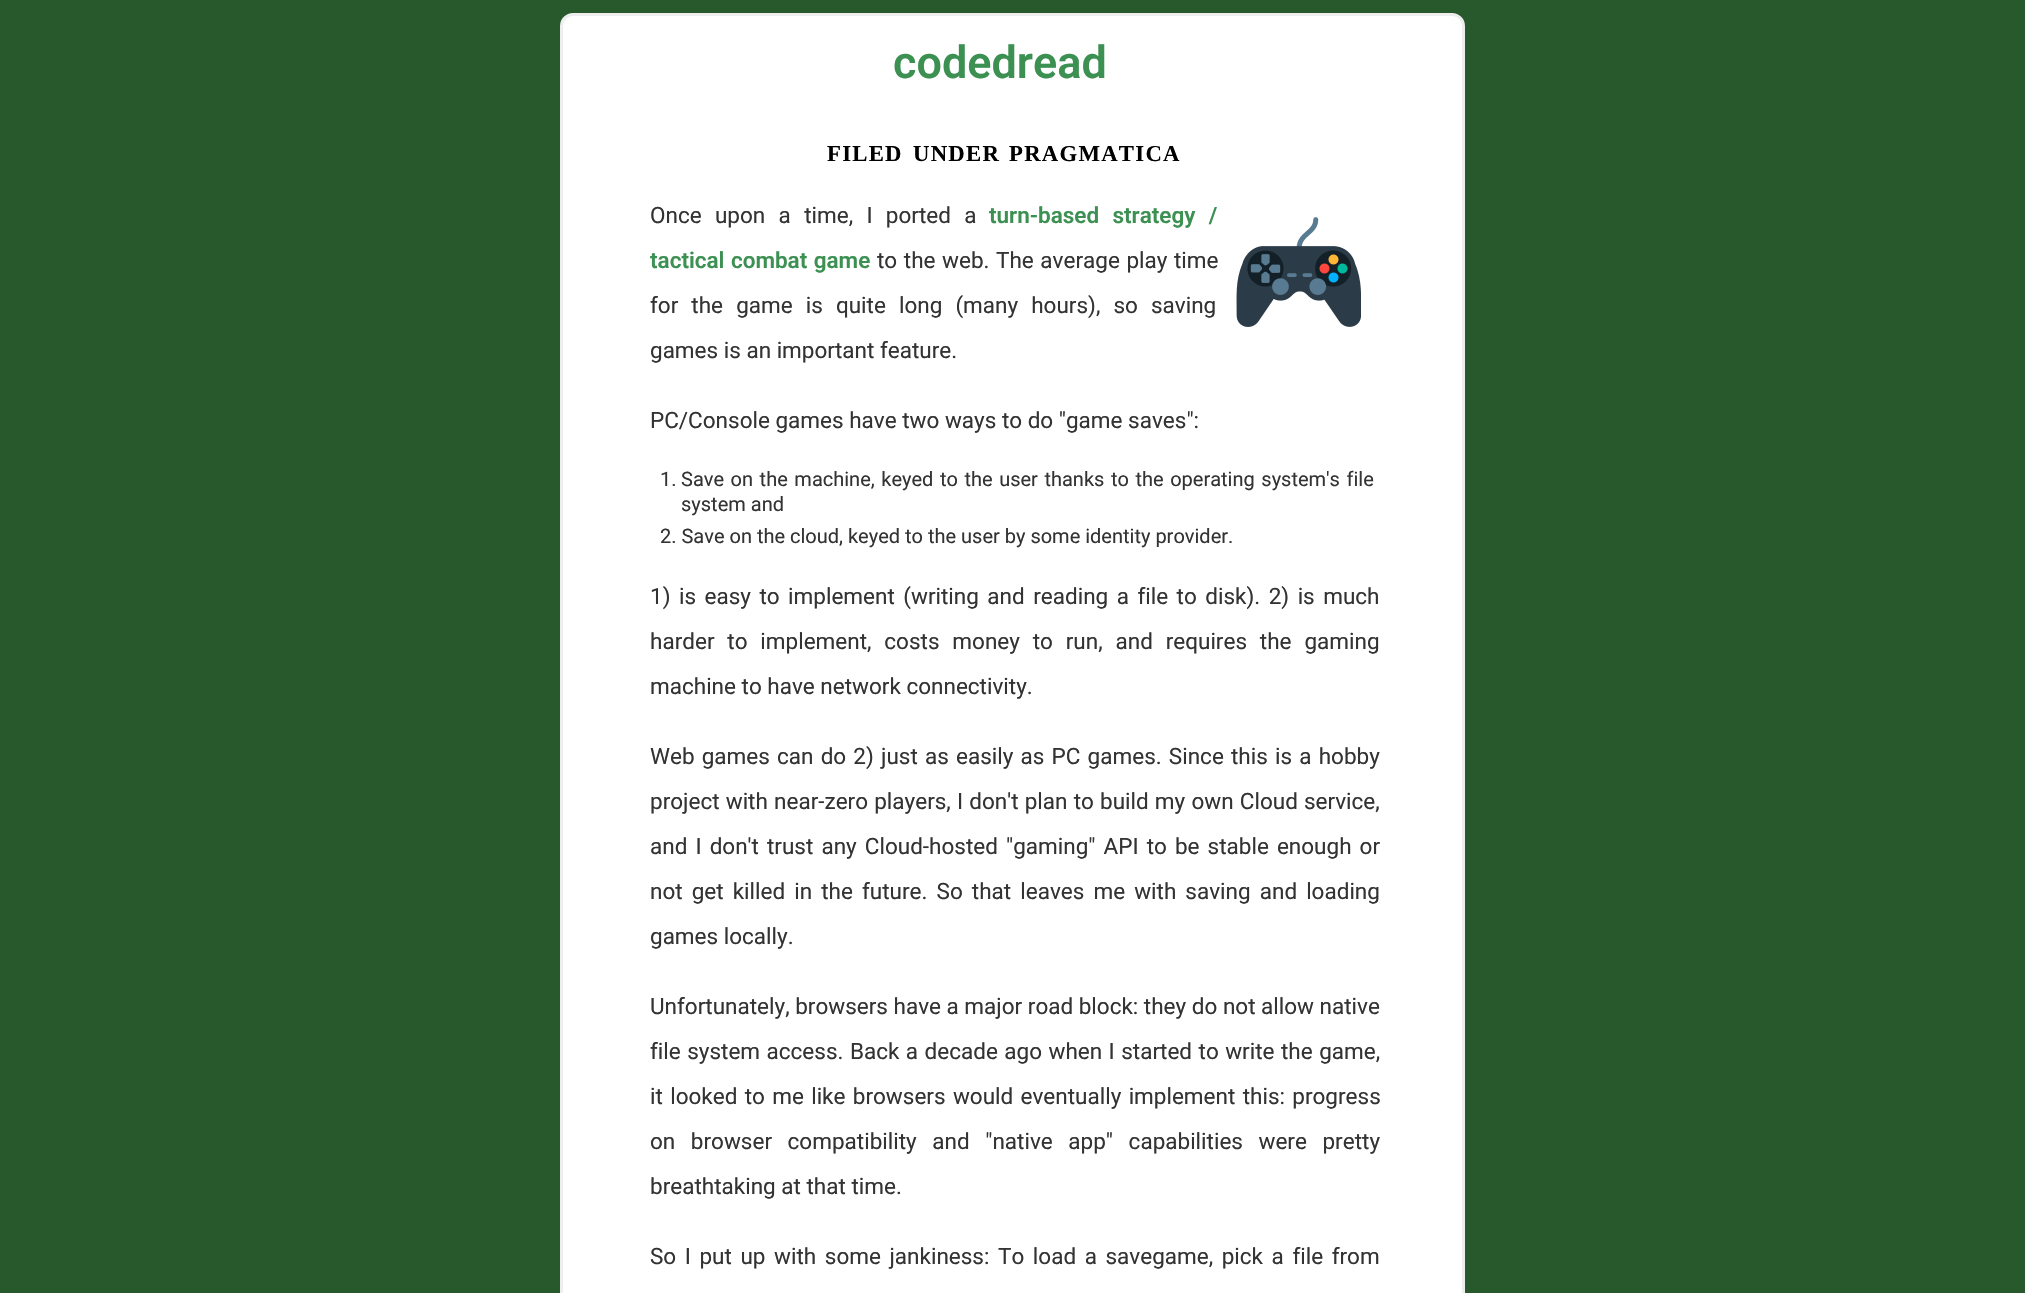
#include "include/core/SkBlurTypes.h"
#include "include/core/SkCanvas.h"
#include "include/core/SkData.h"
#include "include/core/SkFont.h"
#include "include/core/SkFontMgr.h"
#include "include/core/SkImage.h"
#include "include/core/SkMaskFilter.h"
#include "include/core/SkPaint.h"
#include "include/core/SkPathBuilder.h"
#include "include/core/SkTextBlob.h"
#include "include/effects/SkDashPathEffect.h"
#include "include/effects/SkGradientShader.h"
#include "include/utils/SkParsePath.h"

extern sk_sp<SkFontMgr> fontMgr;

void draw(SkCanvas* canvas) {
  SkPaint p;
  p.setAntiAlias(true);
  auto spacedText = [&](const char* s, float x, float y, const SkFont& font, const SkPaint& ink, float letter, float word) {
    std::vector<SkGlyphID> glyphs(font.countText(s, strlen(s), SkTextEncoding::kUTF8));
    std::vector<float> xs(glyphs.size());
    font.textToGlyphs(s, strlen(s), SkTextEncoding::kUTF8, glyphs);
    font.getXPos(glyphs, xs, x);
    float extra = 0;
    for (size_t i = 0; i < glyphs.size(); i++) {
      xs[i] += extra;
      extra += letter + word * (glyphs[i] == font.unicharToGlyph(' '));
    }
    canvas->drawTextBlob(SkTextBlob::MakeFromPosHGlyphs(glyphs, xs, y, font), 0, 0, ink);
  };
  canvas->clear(SkColorSetRGB(39, 89, 45));
  p.setColor(SK_ColorWHITE);
  canvas->drawRoundRect(SkRect::MakeLTRB(561.5f, 14.5f, 1463.5f, 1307.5f), 11.5f, 11.5f, p);
  p.setStyle(SkPaint::kStroke_Style);
  p.setStrokeWidth(3);
  p.setColor(SkColorSetRGB(238, 238, 238));
  canvas->drawRoundRect(SkRect::MakeLTRB(561.5f, 14.5f, 1463.5f, 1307.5f), 11.5f, 11.5f, p);
  canvas->drawImageRect(SkImages::DeferredFromEncodedData(SkData::MakeFromFileName("images/1.png")), SkRect::MakeLTRB(1236, 217, 1361, 327), SkSamplingOptions());
  SkFont font1(fontMgr->matchFamilyStyle("Roboto", SkFontStyle(600, SkFontStyle::kNormal_Width, SkFontStyle::kUpright_Slant)), 45);
  font1.setSubpixel(true);
  p.setStyle(SkPaint::kFill_Style);
  p.setColor(SkColorSetRGB(59, 144, 82));
  canvas->drawString("codedread", 893, 78, font1, p);
  SkFont font2(fontMgr->matchFamilyStyle("Liberation Serif", SkFontStyle::Bold()), 22.75f);
  font2.setSubpixel(true);
  p.setColor(SK_ColorBLACK);
  spacedText("FILED", 827, 161, font2, p, 1.25f, 0);
  spacedText("UNDER", 913, 161, font2, p, 1.25f, 0);
  spacedText("PRAGMATICA", 1009, 161, font2, p, 1.25f, 0);
  SkFont font3(fontMgr->matchFamilyStyle("Roboto", SkFontStyle::Normal()), 22.5f);
  font3.setSubpixel(true);
  p.setColor(SkColorSetRGB(51, 51, 51));
  spacedText("Once upon a time, I ported a", 650, 223, font3, p, 0, 7.75f);
  SkFont font4(fontMgr->matchFamilyStyle("Roboto", SkFontStyle(600, SkFontStyle::kNormal_Width, SkFontStyle::kUpright_Slant)), 22.5f);
  font4.setSubpixel(true);
  p.setColor(SkColorSetRGB(59, 144, 82));
  spacedText("turn-based strategy /", 989, 223, font4, p, 0, 7.75f);
  spacedText("tactical combat game", 650, 268, font4, p, 0, 0.9f);
  p.setColor(SkColorSetRGB(51, 51, 51));
  spacedText("to the web. The average play time", 877, 268, font3, p, 0, 1);
  spacedText("for the game is quite long (many hours), so saving", 650, 313, font3, p, 0, 7.5f);
  canvas->drawString("games is an important feature.", 650, 358, font3, p);
  canvas->drawString("PC/Console games have two ways to do \"game saves\":", 650, 428, font3, p);
  SkFont font5(fontMgr->matchFamilyStyle("Roboto", SkFontStyle::Normal()), 20);
  font5.setSubpixel(true);
  canvas->drawString("1.", 660, 486, font5, p);
  spacedText("Save on the machine, keyed to the user thanks to the operating system's file", 681, 486, font5, p, 0, 1.6f);
  canvas->drawString("system and", 681, 511, font5, p);
  canvas->drawString("2. Save on the cloud, keyed to the user by some identity provider.", 660, 543, font5, p);
  spacedText("1) is easy to implement (writing and reading a file to disk). 2) is much", 650, 604, font3, p, 0, 2.9f);
  spacedText("harder to implement, costs money to run, and requires the gaming", 650, 649, font3, p, 0, 7.25f);
  canvas->drawString("machine to have network connectivity.", 650, 694, font3, p);
  spacedText("Web games can do 2) just as easily as PC games. Since this is a hobby", 650, 764, font3, p, 0, 1.6f);
  spacedText("project with near-zero players, I don't plan to build my own Cloud service,", 650, 809, font3, p, 0, 0.6f);
  spacedText("and I don't trust any Cloud-hosted \"gaming\" API to be stable enough or", 650, 854, font3, p, 0, 2.5f);
  spacedText("not get killed in the future. So that leaves me with saving and loading", 650, 899, font3, p, 0, 3.5f);
  canvas->drawString("games locally.", 650, 944, font3, p);
  canvas->drawString("Unfortunately, browsers have a major road block: they do not allow native", 650, 1014, font3, p);
  spacedText("file system access. Back a decade ago when I started to write the game,", 650, 1059, font3, p, 0, 0.9f);
  spacedText("it looked to me like browsers would eventually implement this: progress", 650, 1104, font3, p, 0, 1.75f);
  spacedText("on browser compatibility and \"native app\" capabilities were pretty", 650, 1149, font3, p, 0, 10);
  canvas->drawString("breathtaking at that time.", 650, 1194, font3, p);
  spacedText("So I put up with some jankiness: To load a savegame, pick a file from", 650, 1264, font3, p, 0, 3);
}
